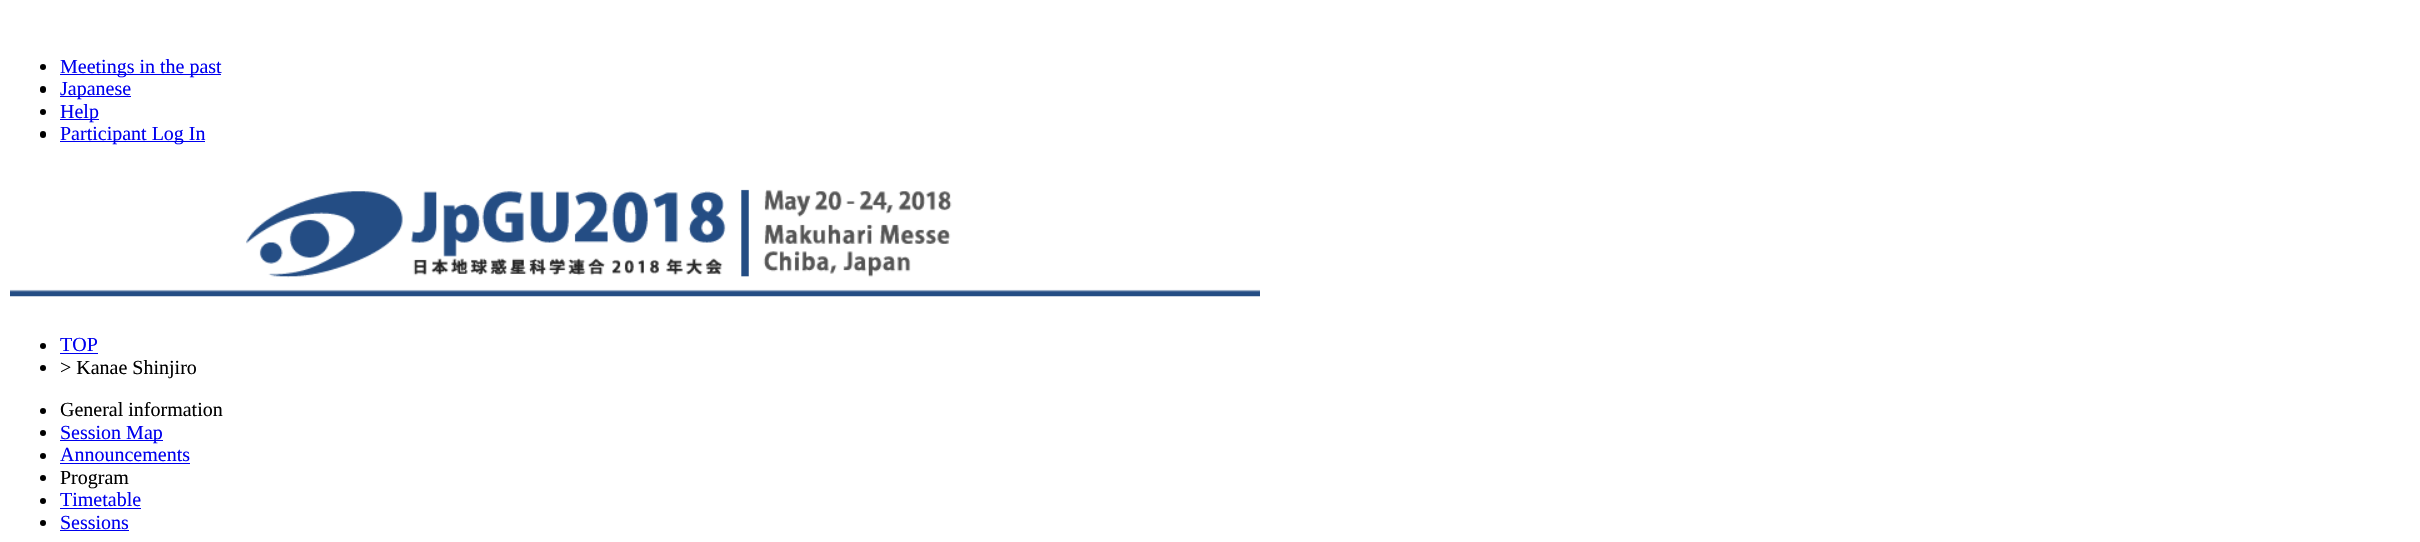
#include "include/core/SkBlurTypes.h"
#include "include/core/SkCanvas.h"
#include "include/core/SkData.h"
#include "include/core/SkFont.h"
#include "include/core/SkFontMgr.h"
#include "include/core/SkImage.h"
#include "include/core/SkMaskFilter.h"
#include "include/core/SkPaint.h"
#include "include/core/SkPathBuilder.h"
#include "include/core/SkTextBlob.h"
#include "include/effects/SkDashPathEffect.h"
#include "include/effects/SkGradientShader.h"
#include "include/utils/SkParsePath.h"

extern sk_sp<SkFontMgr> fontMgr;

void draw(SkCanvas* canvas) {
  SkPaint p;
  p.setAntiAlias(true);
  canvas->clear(SK_ColorWHITE);
  p.setColor(SK_ColorBLACK);
  canvas->drawCircle(43, 67, 3, p);
  p.setColor(SkColorSetRGB(0, 0, 238));
  canvas->drawRect(SkRect::MakeLTRB(60, 74, 221, 75), p);
  p.setColor(SK_ColorBLACK);
  canvas->drawRoundRect(SkRect::MakeLTRB(40, 86, 46, 93), 3, 3, p);
  p.setColor(SkColorSetRGB(0, 0, 238));
  canvas->drawRect(SkRect::MakeLTRB(60, 96, 131, 97), p);
  p.setColor(SK_ColorBLACK);
  canvas->drawCircle(43, 112, 3, p);
  p.setColor(SkColorSetRGB(0, 0, 238));
  canvas->drawRect(SkRect::MakeLTRB(60, 119, 99, 120), p);
  p.setColor(SK_ColorBLACK);
  canvas->drawRoundRect(SkRect::MakeLTRB(40, 131, 46, 138), 3, 3, p);
  p.setColor(SkColorSetRGB(0, 0, 238));
  canvas->drawRect(SkRect::MakeLTRB(60, 141, 205, 142), p);
  canvas->drawImageRect(SkImages::DeferredFromEncodedData(SkData::MakeFromFileName("images/1.png")), SkRect::MakeLTRB(10, 189, 1260, 297), SkSamplingOptions());
  p.setColor(SK_ColorBLACK);
  canvas->drawCircle(43, 346, 3, p);
  p.setColor(SkColorSetRGB(0, 0, 238));
  canvas->drawRect(SkRect::MakeLTRB(60, 353, 98, 354), p);
  p.setColor(SK_ColorBLACK);
  canvas->drawCircle(43, 368, 3, p);
  canvas->drawCircle(43, 411, 3, p);
  canvas->drawCircle(43, 433, 3, p);
  p.setColor(SkColorSetRGB(0, 0, 238));
  canvas->drawRect(SkRect::MakeLTRB(60, 440, 163, 441), p);
  p.setColor(SK_ColorBLACK);
  canvas->drawCircle(43, 456, 3, p);
  p.setColor(SkColorSetRGB(0, 0, 238));
  canvas->drawRect(SkRect::MakeLTRB(60, 463, 190, 464), p);
  p.setColor(SK_ColorBLACK);
  canvas->drawCircle(43, 478, 3, p);
  canvas->drawCircle(43, 501, 3, p);
  p.setColor(SkColorSetRGB(0, 0, 238));
  canvas->drawRect(SkRect::MakeLTRB(60, 508, 141, 509), p);
  p.setColor(SK_ColorBLACK);
  canvas->drawCircle(43, 523, 3, p);
  p.setColor(SkColorSetRGB(0, 0, 238));
  canvas->drawRect(SkRect::MakeLTRB(60, 530, 129, 531), p);
  SkFont font1(fontMgr->matchFamilyStyle("Liberation Serif", SkFontStyle::Normal()), 20);
  font1.setSubpixel(true);
  canvas->drawString("Meetings in the past", 60, 73, font1, p);
  canvas->drawString("Japanese", 60, 95, font1, p);
  canvas->drawString("Help", 60, 118, font1, p);
  canvas->drawString("Participant Log In", 60, 140, font1, p);
  canvas->drawString("TOP", 60, 351, font1, p);
  p.setColor(SK_ColorBLACK);
  canvas->drawString("> Kanae Shinjiro", 60, 374, font1, p);
  canvas->drawString("General information", 60, 416, font1, p);
  p.setColor(SkColorSetRGB(0, 0, 238));
  canvas->drawString("Session Map", 60, 439, font1, p);
  canvas->drawString("Announcements", 60, 461, font1, p);
  p.setColor(SK_ColorBLACK);
  canvas->drawString("Program", 60, 484, font1, p);
  p.setColor(SkColorSetRGB(0, 0, 238));
  canvas->drawString("Timetable", 60, 506, font1, p);
  canvas->drawString("Sessions", 60, 529, font1, p);
}
